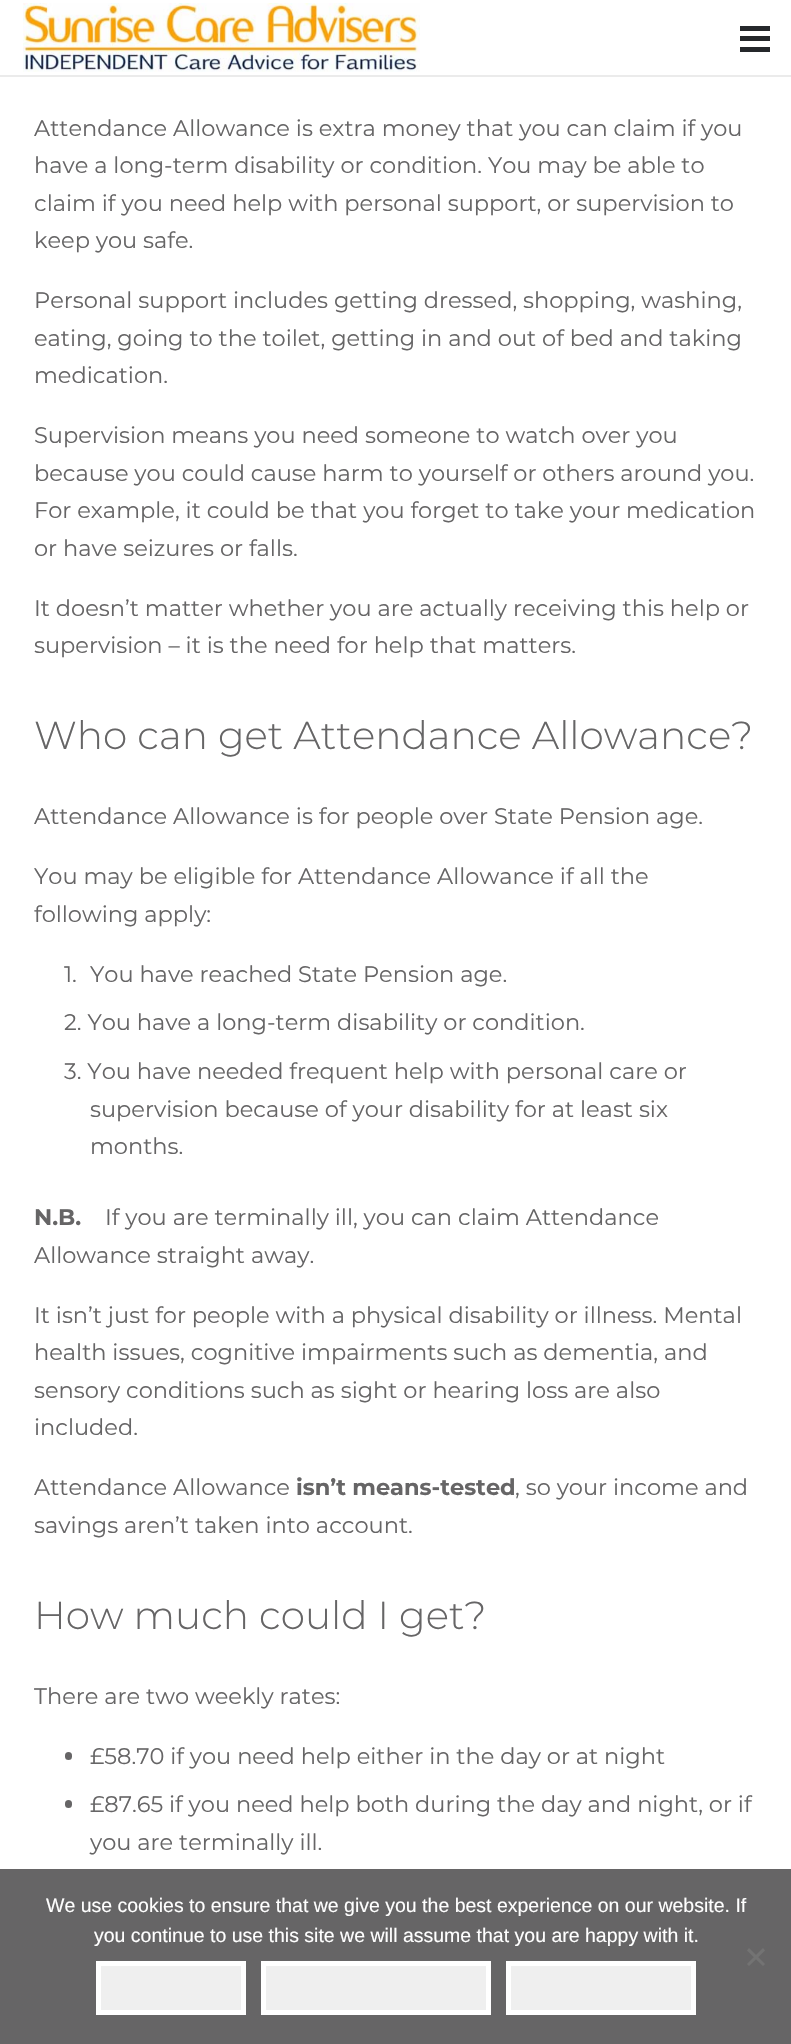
#include "include/core/SkBlurTypes.h"
#include "include/core/SkCanvas.h"
#include "include/core/SkData.h"
#include "include/core/SkFont.h"
#include "include/core/SkFontMgr.h"
#include "include/core/SkImage.h"
#include "include/core/SkMaskFilter.h"
#include "include/core/SkPaint.h"
#include "include/core/SkPathBuilder.h"
#include "include/core/SkTextBlob.h"
#include "include/effects/SkDashPathEffect.h"
#include "include/effects/SkGradientShader.h"
#include "include/utils/SkParsePath.h"

extern sk_sp<SkFontMgr> fontMgr;

void draw(SkCanvas* canvas) {
  SkPaint p;
  p.setAntiAlias(true);
  canvas->clear(SK_ColorWHITE);
  p.setColor(SkColorSetRGB(235, 235, 235));
  canvas->drawRect(SkRect::MakeLTRB(0, 75, 791, 77), p);
  canvas->drawImageRect(SkImages::DeferredFromEncodedData(SkData::MakeFromFileName("images/1.png")), SkRect::MakeLTRB(23, 3, 420, 72), SkSamplingOptions());
  p.setColor(SkColorSetRGB(37, 40, 43));
  canvas->drawRect(SkRect::MakeLTRB(740, 36, 770, 41), p);
  canvas->drawRect(SkRect::MakeLTRB(740, 26, 770, 31), p);
  canvas->drawRect(SkRect::MakeLTRB(740, 47, 770, 52), p);
  p.setColor(SkColorSetRGB(102, 101, 102));
  canvas->drawRoundRect(SkRect::MakeLTRB(65, 1752, 72, 1760), 3.5f, 3.5f, p);
  canvas->drawRoundRect(SkRect::MakeLTRB(65, 1800, 72, 1808), 3.5f, 3.5f, p);
  canvas->drawRect(SkRect::MakeLTRB(0, 1869, 791, 2044), p);
  p.setColor(SkColorSetRGB(115, 115, 115));
  canvas->drawPath(SkPathBuilder().moveTo(763, 1948).lineTo(765, 1950.5f).lineTo(749, 1966).lineTo(747, 1964).close().detach(), p);
  canvas->drawPath(SkPathBuilder().moveTo(747, 1950.5f).lineTo(749, 1948).lineTo(765, 1964).lineTo(763, 1966).close().detach(), p);
  p.setColor(SkColorSetRGB(239, 239, 239));
  canvas->drawRect(SkRect::MakeLTRB(98.5f, 1963.5f, 243.5f, 2012.5f), p);
  p.setStyle(SkPaint::kStroke_Style);
  p.setStrokeWidth(5);
  p.setColor(SK_ColorWHITE);
  canvas->drawRect(SkRect::MakeLTRB(98.5f, 1963.5f, 243.5f, 2012.5f), p);
  p.setStyle(SkPaint::kFill_Style);
  p.setColor(SkColorSetRGB(239, 239, 239));
  canvas->drawRect(SkRect::MakeLTRB(263.5f, 1963.5f, 488.5f, 2012.5f), p);
  p.setStyle(SkPaint::kStroke_Style);
  p.setColor(SK_ColorWHITE);
  canvas->drawRect(SkRect::MakeLTRB(263.5f, 1963.5f, 488.5f, 2012.5f), p);
  p.setStyle(SkPaint::kFill_Style);
  p.setColor(SkColorSetRGB(239, 239, 239));
  canvas->drawRect(SkRect::MakeLTRB(508.5f, 1963.5f, 693.5f, 2012.5f), p);
  p.setStyle(SkPaint::kStroke_Style);
  p.setColor(SK_ColorWHITE);
  canvas->drawRect(SkRect::MakeLTRB(508.5f, 1963.5f, 693.5f, 2012.5f), p);
  SkFont font1(fontMgr->matchFamilyStyle("Montserrat", SkFontStyle::Normal()), 22.5f);
  font1.setSubpixel(true);
  p.setStyle(SkPaint::kFill_Style);
  p.setColor(SkColorSetRGB(102, 101, 102));
  canvas->drawString("Attendance Allowance is extra money that you can claim if you", 34, 136, font1, p);
  canvas->drawString("have a long-term disability or condition. You may be able to", 34, 173, font1, p);
  canvas->drawString("claim if you need help with personal support, or supervision to", 34, 211, font1, p);
  canvas->drawString("keep you safe.", 34, 248, font1, p);
  canvas->drawString("Personal support includes getting dressed, shopping, washing,", 34, 308, font1, p);
  canvas->drawString("eating, going to the toilet, getting in and out of bed and taking", 34, 346, font1, p);
  canvas->drawString("medication.", 34, 383, font1, p);
  canvas->drawString("Supervision means you need someone to watch over you", 34, 443, font1, p);
  canvas->drawString("because you could cause harm to yourself or others around you.", 34, 481, font1, p);
  canvas->drawString("For example, it could be that you forget to take your medication", 34, 518, font1, p);
  canvas->drawString("or have seizures or falls.", 34, 556, font1, p);
  canvas->drawString("It doesn’t matter whether you are actually receiving this help or", 34, 616, font1, p);
  canvas->drawString("supervision – it is the need for help that matters.", 34, 653, font1, p);
  SkFont font2(fontMgr->matchFamilyStyle("Montserrat", SkFontStyle(300, SkFontStyle::kNormal_Width, SkFontStyle::kUpright_Slant)), 39);
  font2.setSubpixel(true);
  canvas->drawString("Who can get Attendance Allowance?", 34, 749, font2, p);
  canvas->drawString("Attendance Allowance is for people over State Pension age.", 34, 824, font1, p);
  canvas->drawString("You may be eligible for Attendance Allowance if all the", 34, 884, font1, p);
  canvas->drawString("following apply:", 34, 922, font1, p);
  canvas->drawString("1.", 64, 982, font1, p);
  canvas->drawString("You have reached State Pension age.", 90, 982, font1, p);
  canvas->drawString("2. You have a long-term disability or condition.", 64, 1030, font1, p);
  canvas->drawString("3. You have needed frequent help with personal care or", 64, 1079, font1, p);
  canvas->drawString("supervision because of your disability for at least six", 90, 1117, font1, p);
  canvas->drawString("months.", 90, 1154, font1, p);
  SkFont font3(fontMgr->matchFamilyStyle("Montserrat", SkFontStyle::Bold()), 22.5f);
  font3.setSubpixel(true);
  canvas->drawString("N.B.", 34, 1225, font3, p);
  canvas->drawString("If you are terminally ill, you can claim Attendance", 105, 1225, font1, p);
  canvas->drawString("Allowance straight away.", 34, 1263, font1, p);
  canvas->drawString("It isn’t just for people with a physical disability or illness. Mental", 34, 1323, font1, p);
  canvas->drawString("health issues, cognitive impairments such as dementia, and", 34, 1360, font1, p);
  canvas->drawString("sensory conditions such as sight or hearing loss are also", 34, 1398, font1, p);
  canvas->drawString("included.", 34, 1435, font1, p);
  canvas->drawString("Attendance Allowance", 34, 1495, font1, p);
  canvas->drawString("isn’t means-tested", 296, 1495, font3, p);
  canvas->drawString(", so your income and", 515, 1495, font1, p);
  canvas->drawString("savings aren’t taken into account.", 34, 1533, font1, p);
  canvas->drawString("How much could I get?", 34, 1629, font2, p);
  canvas->drawString("There are two weekly rates:", 34, 1704, font1, p);
  canvas->drawString("£58.70 if you need help either in the day or at night", 90, 1764, font1, p);
  canvas->drawString("£87.65 if you need help both during the day and night, or if", 90, 1812, font1, p);
  canvas->drawString("you are terminally ill.", 90, 1850, font1, p);
  SkFont font4(fontMgr->matchFamilyStyle("Liberation Sans", SkFontStyle::Normal()), 19.5f);
  font4.setSubpixel(true);
  p.setColor(SK_ColorWHITE);
  canvas->drawString("We use cookies to ensure that we give you the best experience on our website. If", 46, 1912, font4, p);
  canvas->drawString("you continue to use this site we will assume that you are happy with it.", 94, 1942, font4, p);
}
